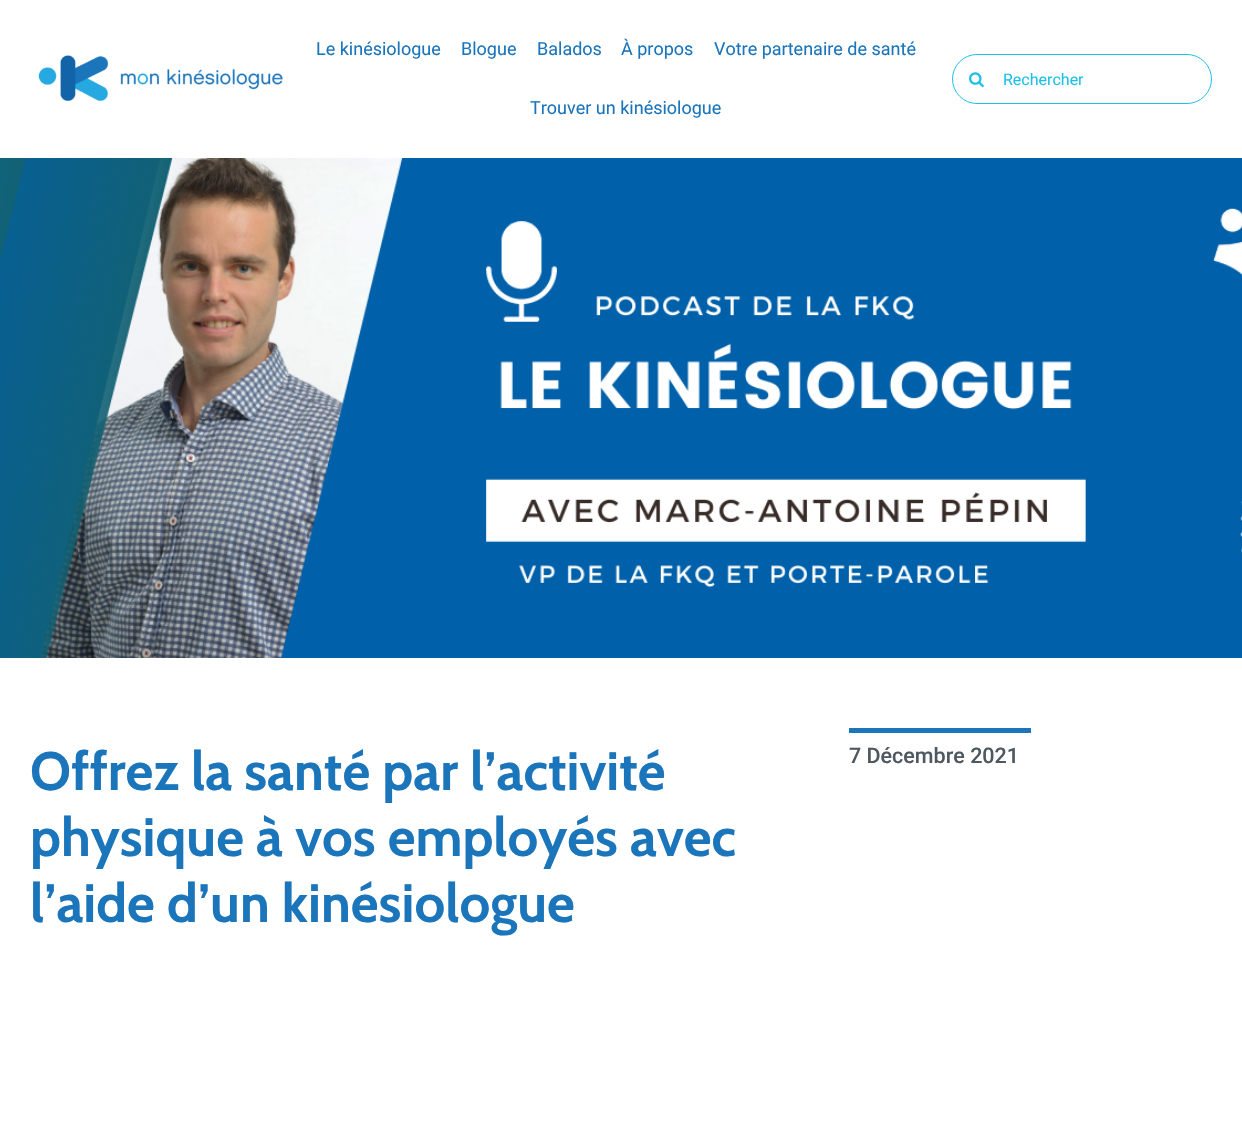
#include "include/core/SkBlurTypes.h"
#include "include/core/SkCanvas.h"
#include "include/core/SkData.h"
#include "include/core/SkFont.h"
#include "include/core/SkFontMgr.h"
#include "include/core/SkImage.h"
#include "include/core/SkMaskFilter.h"
#include "include/core/SkPaint.h"
#include "include/core/SkPathBuilder.h"
#include "include/core/SkTextBlob.h"
#include "include/effects/SkDashPathEffect.h"
#include "include/effects/SkGradientShader.h"
#include "include/utils/SkParsePath.h"

extern sk_sp<SkFontMgr> fontMgr;

void draw(SkCanvas* canvas) {
  SkPaint p;
  p.setAntiAlias(true);
  canvas->clear(SK_ColorWHITE);
  canvas->drawImageRect(SkImages::DeferredFromEncodedData(SkData::MakeFromFileName("images/1.png")), SkRect::MakeLTRB(38, 55, 283, 102), SkSamplingOptions());
  p.setStyle(SkPaint::kStroke_Style);
  p.setStrokeWidth(1);
  p.setColor(SkColorSetRGB(28, 191, 232));
  canvas->drawRoundRect(SkRect::MakeLTRB(952.5f, 54.5f, 1211.5f, 103.5f), 24.5f, 24.5f, p);
  canvas->drawImageRect(SkImages::DeferredFromEncodedData(SkData::MakeFromFileName("images/2.png")), SkRect::MakeLTRB(969, 72, 984, 88), SkSamplingOptions());
  canvas->drawImageRect(SkImages::DeferredFromEncodedData(SkData::MakeFromFileName("images/3.png")), SkRect::MakeLTRB(0, 158, 1242, 658), SkSamplingOptions());
  p.setStyle(SkPaint::kFill_Style);
  p.setColor(SkColorSetRGB(27, 117, 187));
  canvas->drawRect(SkRect::MakeLTRB(849, 728, 1031, 733), p);
  SkFont font1(fontMgr->matchFamilyStyle("Roboto", SkFontStyle::Normal()), 18);
  font1.setSubpixel(true);
  canvas->drawString("Le kinésiologue", 316, 55, font1, p);
  canvas->drawString("Blogue", 461, 55, font1, p);
  canvas->drawString("Balados", 537, 55, font1, p);
  canvas->drawString("À propos", 621, 55, font1, p);
  canvas->drawString("Votre partenaire de santé", 714, 55, font1, p);
  canvas->drawString("Trouver un kinésiologue", 530, 114, font1, p);
  SkFont font2(fontMgr->matchFamilyStyle("Roboto", SkFontStyle::Normal()), 16);
  font2.setSubpixel(true);
  p.setColor(SkColorSetRGB(28, 191, 232));
  canvas->drawString("Rechercher", 1003, 85, font2, p);
  SkFont font3(fontMgr->matchFamilyStyle("Cabin", SkFontStyle::Bold()), 54);
  font3.setSubpixel(true);
  p.setColor(SkColorSetRGB(27, 117, 187));
  canvas->drawString("Offrez la santé par l’activité", 30, 790, font3, p);
  canvas->drawString("physique à vos employés avec", 30, 856, font3, p);
  canvas->drawString("l’aide d’un kinésiologue", 30, 922, font3, p);
  SkFont font4(fontMgr->matchFamilyStyle("Roboto", SkFontStyle(500, SkFontStyle::kNormal_Width, SkFontStyle::kUpright_Slant)), 21.5f);
  font4.setSubpixel(true);
  p.setColor(SkColorSetRGB(78, 88, 96));
  canvas->drawString("7 Décembre 2021", 849, 763, font4, p);
}
